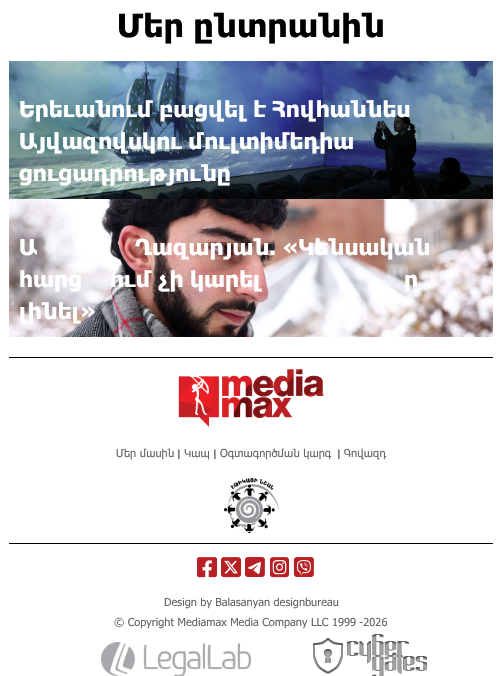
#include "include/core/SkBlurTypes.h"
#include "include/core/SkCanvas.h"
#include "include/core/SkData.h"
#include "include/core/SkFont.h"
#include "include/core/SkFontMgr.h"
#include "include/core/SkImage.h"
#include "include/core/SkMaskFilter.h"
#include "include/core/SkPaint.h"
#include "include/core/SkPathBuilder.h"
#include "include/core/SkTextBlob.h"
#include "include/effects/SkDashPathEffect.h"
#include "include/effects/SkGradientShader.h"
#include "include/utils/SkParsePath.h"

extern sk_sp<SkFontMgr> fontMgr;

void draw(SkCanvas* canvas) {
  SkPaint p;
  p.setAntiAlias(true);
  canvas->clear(SK_ColorWHITE);
  canvas->drawImageRect(SkImages::DeferredFromEncodedData(SkData::MakeFromFileName("images/1.png")), SkRect::MakeLTRB(9, 61, 493, 199), SkSamplingOptions());
  canvas->drawImageRect(SkImages::DeferredFromEncodedData(SkData::MakeFromFileName("images/2.png")), SkRect::MakeLTRB(9, 199, 493, 337), SkSamplingOptions());
  p.setColor(SK_ColorBLACK);
  canvas->drawRect(SkRect::MakeLTRB(9, 357, 493, 358), p);
  canvas->drawRect(SkRect::MakeLTRB(9, 543, 493, 544), p);
  canvas->drawImageRect(SkImages::DeferredFromEncodedData(SkData::MakeFromFileName("images/3.png")), SkRect::MakeLTRB(178, 369, 324, 427), SkSamplingOptions());
  canvas->drawImageRect(SkImages::DeferredFromEncodedData(SkData::MakeFromFileName("images/4.png")), SkRect::MakeLTRB(224, 478, 279, 533), SkSamplingOptions());
  canvas->drawImageRect(SkImages::DeferredFromEncodedData(SkData::MakeFromFileName("images/5.png")), SkRect::MakeLTRB(197, 557, 217, 578), SkSamplingOptions());
  canvas->drawImageRect(SkImages::DeferredFromEncodedData(SkData::MakeFromFileName("images/6.png")), SkRect::MakeLTRB(221, 557, 241, 578), SkSamplingOptions());
  canvas->drawImageRect(SkImages::DeferredFromEncodedData(SkData::MakeFromFileName("images/7.png")), SkRect::MakeLTRB(245, 557, 265, 577), SkSamplingOptions());
  canvas->drawImageRect(SkImages::DeferredFromEncodedData(SkData::MakeFromFileName("images/8.png")), SkRect::MakeLTRB(270, 557, 289, 578), SkSamplingOptions());
  canvas->drawImageRect(SkImages::DeferredFromEncodedData(SkData::MakeFromFileName("images/9.png")), SkRect::MakeLTRB(293, 557, 314, 577), SkSamplingOptions());
  canvas->drawImageRect(SkImages::DeferredFromEncodedData(SkData::MakeFromFileName("images/10.png")), SkRect::MakeLTRB(101, 642, 251, 676), SkSamplingOptions());
  canvas->drawImageRect(SkImages::DeferredFromEncodedData(SkData::MakeFromFileName("images/11.png")), SkRect::MakeLTRB(313, 634, 427, 676), SkSamplingOptions());
  SkFont font1(fontMgr->matchFamilyStyle("Tahoma", SkFontStyle::Bold()), 32);
  font1.setSubpixel(true);
  canvas->drawString("Մեր ընտրանին", 117, 37, font1, p);
  SkFont font2(fontMgr->matchFamilyStyle("Tahoma", SkFontStyle::Bold()), 22);
  font2.setSubpixel(true);
  p.setColor(SK_ColorWHITE);
  canvas->drawString("Երեւանում բացվել է Հովհաննես", 19, 117, font2, p);
  canvas->drawString("Այվազովսկու մուլտիմեդիա", 19, 149, font2, p);
  canvas->drawString("ցուցադրությունը", 19, 181, font2, p);
  canvas->drawString("Ա", 19, 255, font2, p);
  canvas->drawString("Ղազարյան. «Կենսական", 135, 255, font2, p);
  canvas->drawString("հարց", 19, 287, font2, p);
  canvas->drawString("ում չի կարել", 110, 287, font2, p);
  canvas->drawString("ր", 404, 287, font2, p);
  canvas->drawString("լինել»", 19, 319, font2, p);
  SkFont font3(fontMgr->matchFamilyStyle("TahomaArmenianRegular", SkFontStyle::Normal()), 11);
  font3.setSubpixel(true);
  p.setColor(SkColorSetRGB(102, 102, 102));
  canvas->drawString("Մեր մասին", 116, 457, font3, p);
  SkFont font4(fontMgr->matchFamilyStyle("TahomaArmenianRegular", SkFontStyle::Normal()), 10);
  font4.setSubpixel(true);
  p.setColor(SkColorSetRGB(34, 34, 34));
  canvas->drawString("|", 177, 457, font4, p);
  p.setColor(SkColorSetRGB(102, 102, 102));
  canvas->drawString("Կապ", 184, 457, font3, p);
  p.setColor(SkColorSetRGB(34, 34, 34));
  canvas->drawString("|", 213, 457, font4, p);
  p.setColor(SkColorSetRGB(102, 102, 102));
  canvas->drawString("Օգտագործման կարգ", 220, 457, font3, p);
  p.setColor(SkColorSetRGB(34, 34, 34));
  canvas->drawString("|", 337, 457, font4, p);
  p.setColor(SkColorSetRGB(102, 102, 102));
  canvas->drawString("Գովազդ", 344, 457, font3, p);
  canvas->drawString("Design by Balasanyan designbureau", 164, 606, font3, p);
  canvas->drawString("© Copyright Mediamax Media Company LLC 1999 -2026", 114, 626, font3, p);
}
